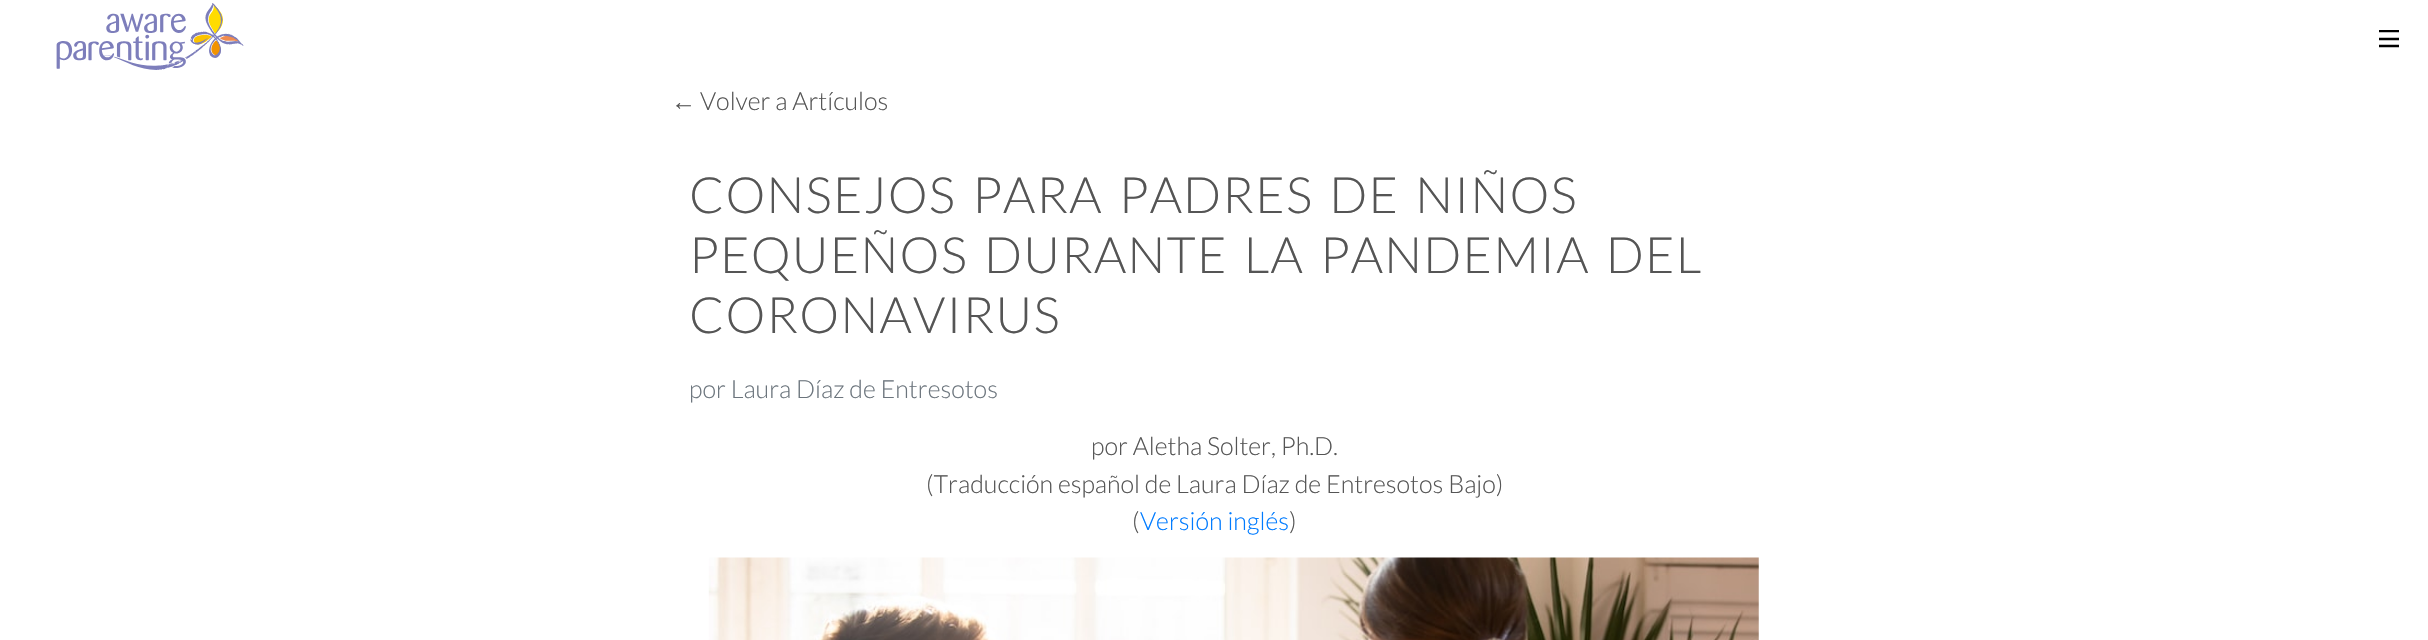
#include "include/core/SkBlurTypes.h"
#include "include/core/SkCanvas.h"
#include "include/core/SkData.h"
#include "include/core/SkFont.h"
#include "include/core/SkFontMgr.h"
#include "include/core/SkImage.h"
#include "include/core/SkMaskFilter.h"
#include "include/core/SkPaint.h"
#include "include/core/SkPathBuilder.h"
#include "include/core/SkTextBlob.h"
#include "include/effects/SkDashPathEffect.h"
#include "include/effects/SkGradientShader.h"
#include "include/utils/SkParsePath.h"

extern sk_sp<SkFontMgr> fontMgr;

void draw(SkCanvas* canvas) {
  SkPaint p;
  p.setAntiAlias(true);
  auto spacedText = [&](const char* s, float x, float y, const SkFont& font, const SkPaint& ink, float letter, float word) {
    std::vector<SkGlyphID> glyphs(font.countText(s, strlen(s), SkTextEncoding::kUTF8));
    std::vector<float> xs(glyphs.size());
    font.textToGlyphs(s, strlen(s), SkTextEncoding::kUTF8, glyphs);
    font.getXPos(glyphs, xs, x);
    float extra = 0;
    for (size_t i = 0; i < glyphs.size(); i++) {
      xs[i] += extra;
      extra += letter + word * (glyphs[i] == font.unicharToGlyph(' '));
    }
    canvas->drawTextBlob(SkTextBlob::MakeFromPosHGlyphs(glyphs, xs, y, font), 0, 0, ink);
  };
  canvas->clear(SK_ColorWHITE);
  canvas->drawImageRect(SkImages::DeferredFromEncodedData(SkData::MakeFromFileName("images/1.png")), SkRect::MakeLTRB(56, 3, 244, 70), SkSamplingOptions());
  canvas->save();
  canvas->clipRect(SkRect::MakeLTRB(2379, 30, 2399, 50));
  p.setStyle(SkPaint::kStroke_Style);
  p.setStrokeWidth(2.5f);
  p.setColor(SK_ColorBLACK);
  canvas->drawPath(SkPathBuilder().moveTo(2379, 31).lineTo(2399, 31).detach(), p);
  canvas->restore();
  canvas->drawPath(SkPathBuilder().moveTo(2379, 39).lineTo(2399, 39).moveTo(2379, 46).lineTo(2399, 46).detach(), p);
  canvas->drawImageRect(SkImages::DeferredFromEncodedData(SkData::MakeFromFileName("images/2.png")), SkRect::MakeLTRB(708, 557, 1759, 640), SkSamplingOptions());
  SkFont font1(fontMgr->matchFamilyStyle("Liberation Sans", SkFontStyle::Normal()), 25);
  font1.setSubpixel(true);
  p.setStyle(SkPaint::kFill_Style);
  p.setColor(SkColorSetRGB(85, 85, 85));
  canvas->drawString("←", 671, 110, font1, p);
  SkFont font2(fontMgr->matchFamilyStyle("Lato", SkFontStyle(300, SkFontStyle::kNormal_Width, SkFontStyle::kUpright_Slant)), 25);
  font2.setSubpixel(true);
  canvas->drawString("Volver a Artículos", 700, 110, font2, p);
  SkFont font3(fontMgr->matchFamilyStyle("Lato", SkFontStyle(300, SkFontStyle::kNormal_Width, SkFontStyle::kUpright_Slant)), 50);
  font3.setSubpixel(true);
  spacedText("CONSEJOS PARA PADRES DE NIÑOS", 689, 213, font3, p, 1.25f, 5);
  spacedText("PEQUEÑOS DURANTE LA PANDEMIA DEL", 689, 273, font3, p, 1.25f, 5);
  spacedText("CORONAVIRUS", 689, 333, font3, p, 1.25f, 0);
  p.setColor(SkColorSetRGB(108, 117, 125));
  canvas->drawString("por Laura Díaz de Entresotos", 689, 398, font2, p);
  p.setColor(SkColorSetRGB(85, 85, 85));
  canvas->drawString("por Aletha Solter, Ph.D.", 1091, 455, font2, p);
  canvas->drawString("(Traducción español de Laura Díaz de Entresotos Bajo)", 926, 493, font2, p);
  canvas->drawString("(", 1132, 530, font2, p);
  p.setColor(SkColorSetRGB(0, 123, 255));
  canvas->drawString("Versión inglés", 1140, 530, font2, p);
  p.setColor(SkColorSetRGB(85, 85, 85));
  canvas->drawString(")", 1289, 530, font2, p);
}
